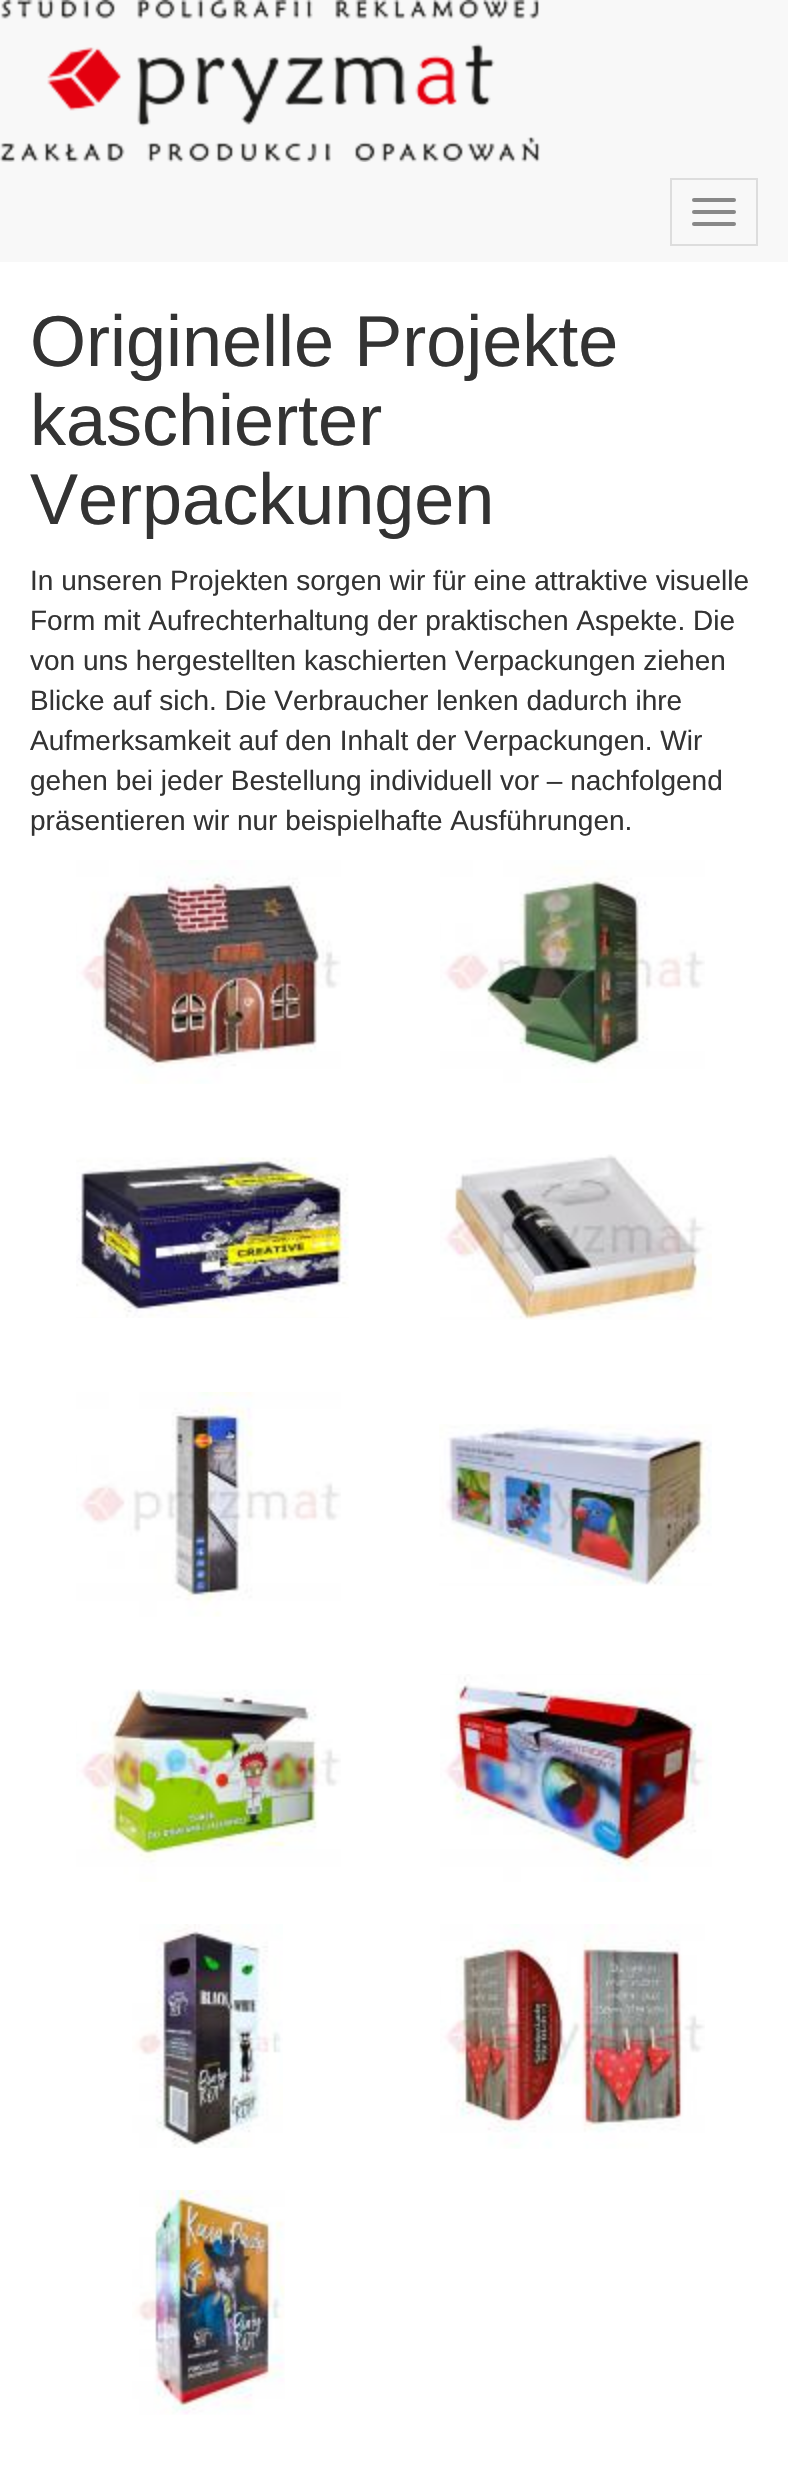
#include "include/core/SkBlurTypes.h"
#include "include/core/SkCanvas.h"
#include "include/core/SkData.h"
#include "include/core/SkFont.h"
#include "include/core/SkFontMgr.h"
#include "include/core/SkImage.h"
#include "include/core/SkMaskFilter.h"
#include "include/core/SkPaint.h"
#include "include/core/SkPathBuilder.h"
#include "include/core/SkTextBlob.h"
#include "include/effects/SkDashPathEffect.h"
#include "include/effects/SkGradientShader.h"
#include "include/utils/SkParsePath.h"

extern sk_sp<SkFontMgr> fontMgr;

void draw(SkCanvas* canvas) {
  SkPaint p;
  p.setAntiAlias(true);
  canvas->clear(SK_ColorWHITE);
  p.setColor(SkColorSetRGB(248, 248, 248));
  canvas->drawRect(SkRect::MakeLTRB(0, 0, 788, 262), p);
  canvas->drawImageRect(SkImages::DeferredFromEncodedData(SkData::MakeFromFileName("images/1.png")), SkRect::MakeLTRB(0, 0, 540, 162), SkSamplingOptions());
  p.setStyle(SkPaint::kStroke_Style);
  p.setStrokeWidth(2);
  p.setColor(SkColorSetRGB(221, 221, 221));
  canvas->drawRect(SkRect::MakeLTRB(671, 179, 757, 245), p);
  p.setStyle(SkPaint::kFill_Style);
  p.setColor(SkColorSetRGB(136, 136, 136));
  canvas->drawRoundRect(SkRect::MakeLTRB(692, 198, 736, 202), 2, 2, p);
  canvas->drawRoundRect(SkRect::MakeLTRB(692, 210, 736, 214), 2, 2, p);
  canvas->drawRoundRect(SkRect::MakeLTRB(692, 222, 736, 226), 2, 2, p);
  canvas->drawImageRect(SkImages::DeferredFromEncodedData(SkData::MakeFromFileName("images/2.png")), SkRect::MakeLTRB(76, 860, 341, 1084), SkSamplingOptions());
  canvas->drawImageRect(SkImages::DeferredFromEncodedData(SkData::MakeFromFileName("images/3.png")), SkRect::MakeLTRB(440, 860, 705, 1083), SkSamplingOptions());
  canvas->drawImageRect(SkImages::DeferredFromEncodedData(SkData::MakeFromFileName("images/4.png")), SkRect::MakeLTRB(76, 1157, 349, 1318), SkSamplingOptions());
  canvas->drawImageRect(SkImages::DeferredFromEncodedData(SkData::MakeFromFileName("images/5.png")), SkRect::MakeLTRB(440, 1154, 712, 1320), SkSamplingOptions());
  canvas->drawImageRect(SkImages::DeferredFromEncodedData(SkData::MakeFromFileName("images/6.png")), SkRect::MakeLTRB(76, 1392, 341, 1617), SkSamplingOptions());
  canvas->drawImageRect(SkImages::DeferredFromEncodedData(SkData::MakeFromFileName("images/7.png")), SkRect::MakeLTRB(439, 1424, 712, 1586), SkSamplingOptions());
  canvas->drawImageRect(SkImages::DeferredFromEncodedData(SkData::MakeFromFileName("images/8.png")), SkRect::MakeLTRB(76, 1689, 341, 1882), SkSamplingOptions());
  canvas->drawImageRect(SkImages::DeferredFromEncodedData(SkData::MakeFromFileName("images/9.png")), SkRect::MakeLTRB(440, 1674, 712, 1882), SkSamplingOptions());
  canvas->drawImageRect(SkImages::DeferredFromEncodedData(SkData::MakeFromFileName("images/10.png")), SkRect::MakeLTRB(132, 1924, 283, 2148), SkSamplingOptions());
  canvas->drawImageRect(SkImages::DeferredFromEncodedData(SkData::MakeFromFileName("images/11.png")), SkRect::MakeLTRB(440, 1924, 705, 2149), SkSamplingOptions());
  canvas->drawImageRect(SkImages::DeferredFromEncodedData(SkData::MakeFromFileName("images/12.png")), SkRect::MakeLTRB(132, 2190, 285, 2415), SkSamplingOptions());
  SkFont font1(fontMgr->matchFamilyStyle("Liberation Sans", SkFontStyle::Normal()), 72);
  font1.setSubpixel(true);
  p.setColor(SkColorSetRGB(51, 51, 51));
  canvas->drawString("Originelle Projekte", 30, 366, font1, p);
  canvas->drawString("kaschierter", 30, 445, font1, p);
  canvas->drawString("Verpackungen", 30, 524, font1, p);
  SkFont font2(fontMgr->matchFamilyStyle("Liberation Sans", SkFontStyle::Normal()), 28);
  font2.setSubpixel(true);
  canvas->drawString("In unseren Projekten sorgen wir für eine attraktive visuelle", 30, 590, font2, p);
  canvas->drawString("Form mit Aufrechterhaltung der praktischen Aspekte. Die", 30, 630, font2, p);
  canvas->drawString("von uns hergestellten kaschierten Verpackungen ziehen", 30, 670, font2, p);
  canvas->drawString("Blicke auf sich. Die Verbraucher lenken dadurch ihre", 30, 710, font2, p);
  canvas->drawString("Aufmerksamkeit auf den Inhalt der Verpackungen. Wir", 30, 750, font2, p);
  canvas->drawString("gehen bei jeder Bestellung individuell vor – nachfolgend", 30, 790, font2, p);
  canvas->drawString("präsentieren wir nur beispielhafte Ausführungen.", 30, 830, font2, p);
}
